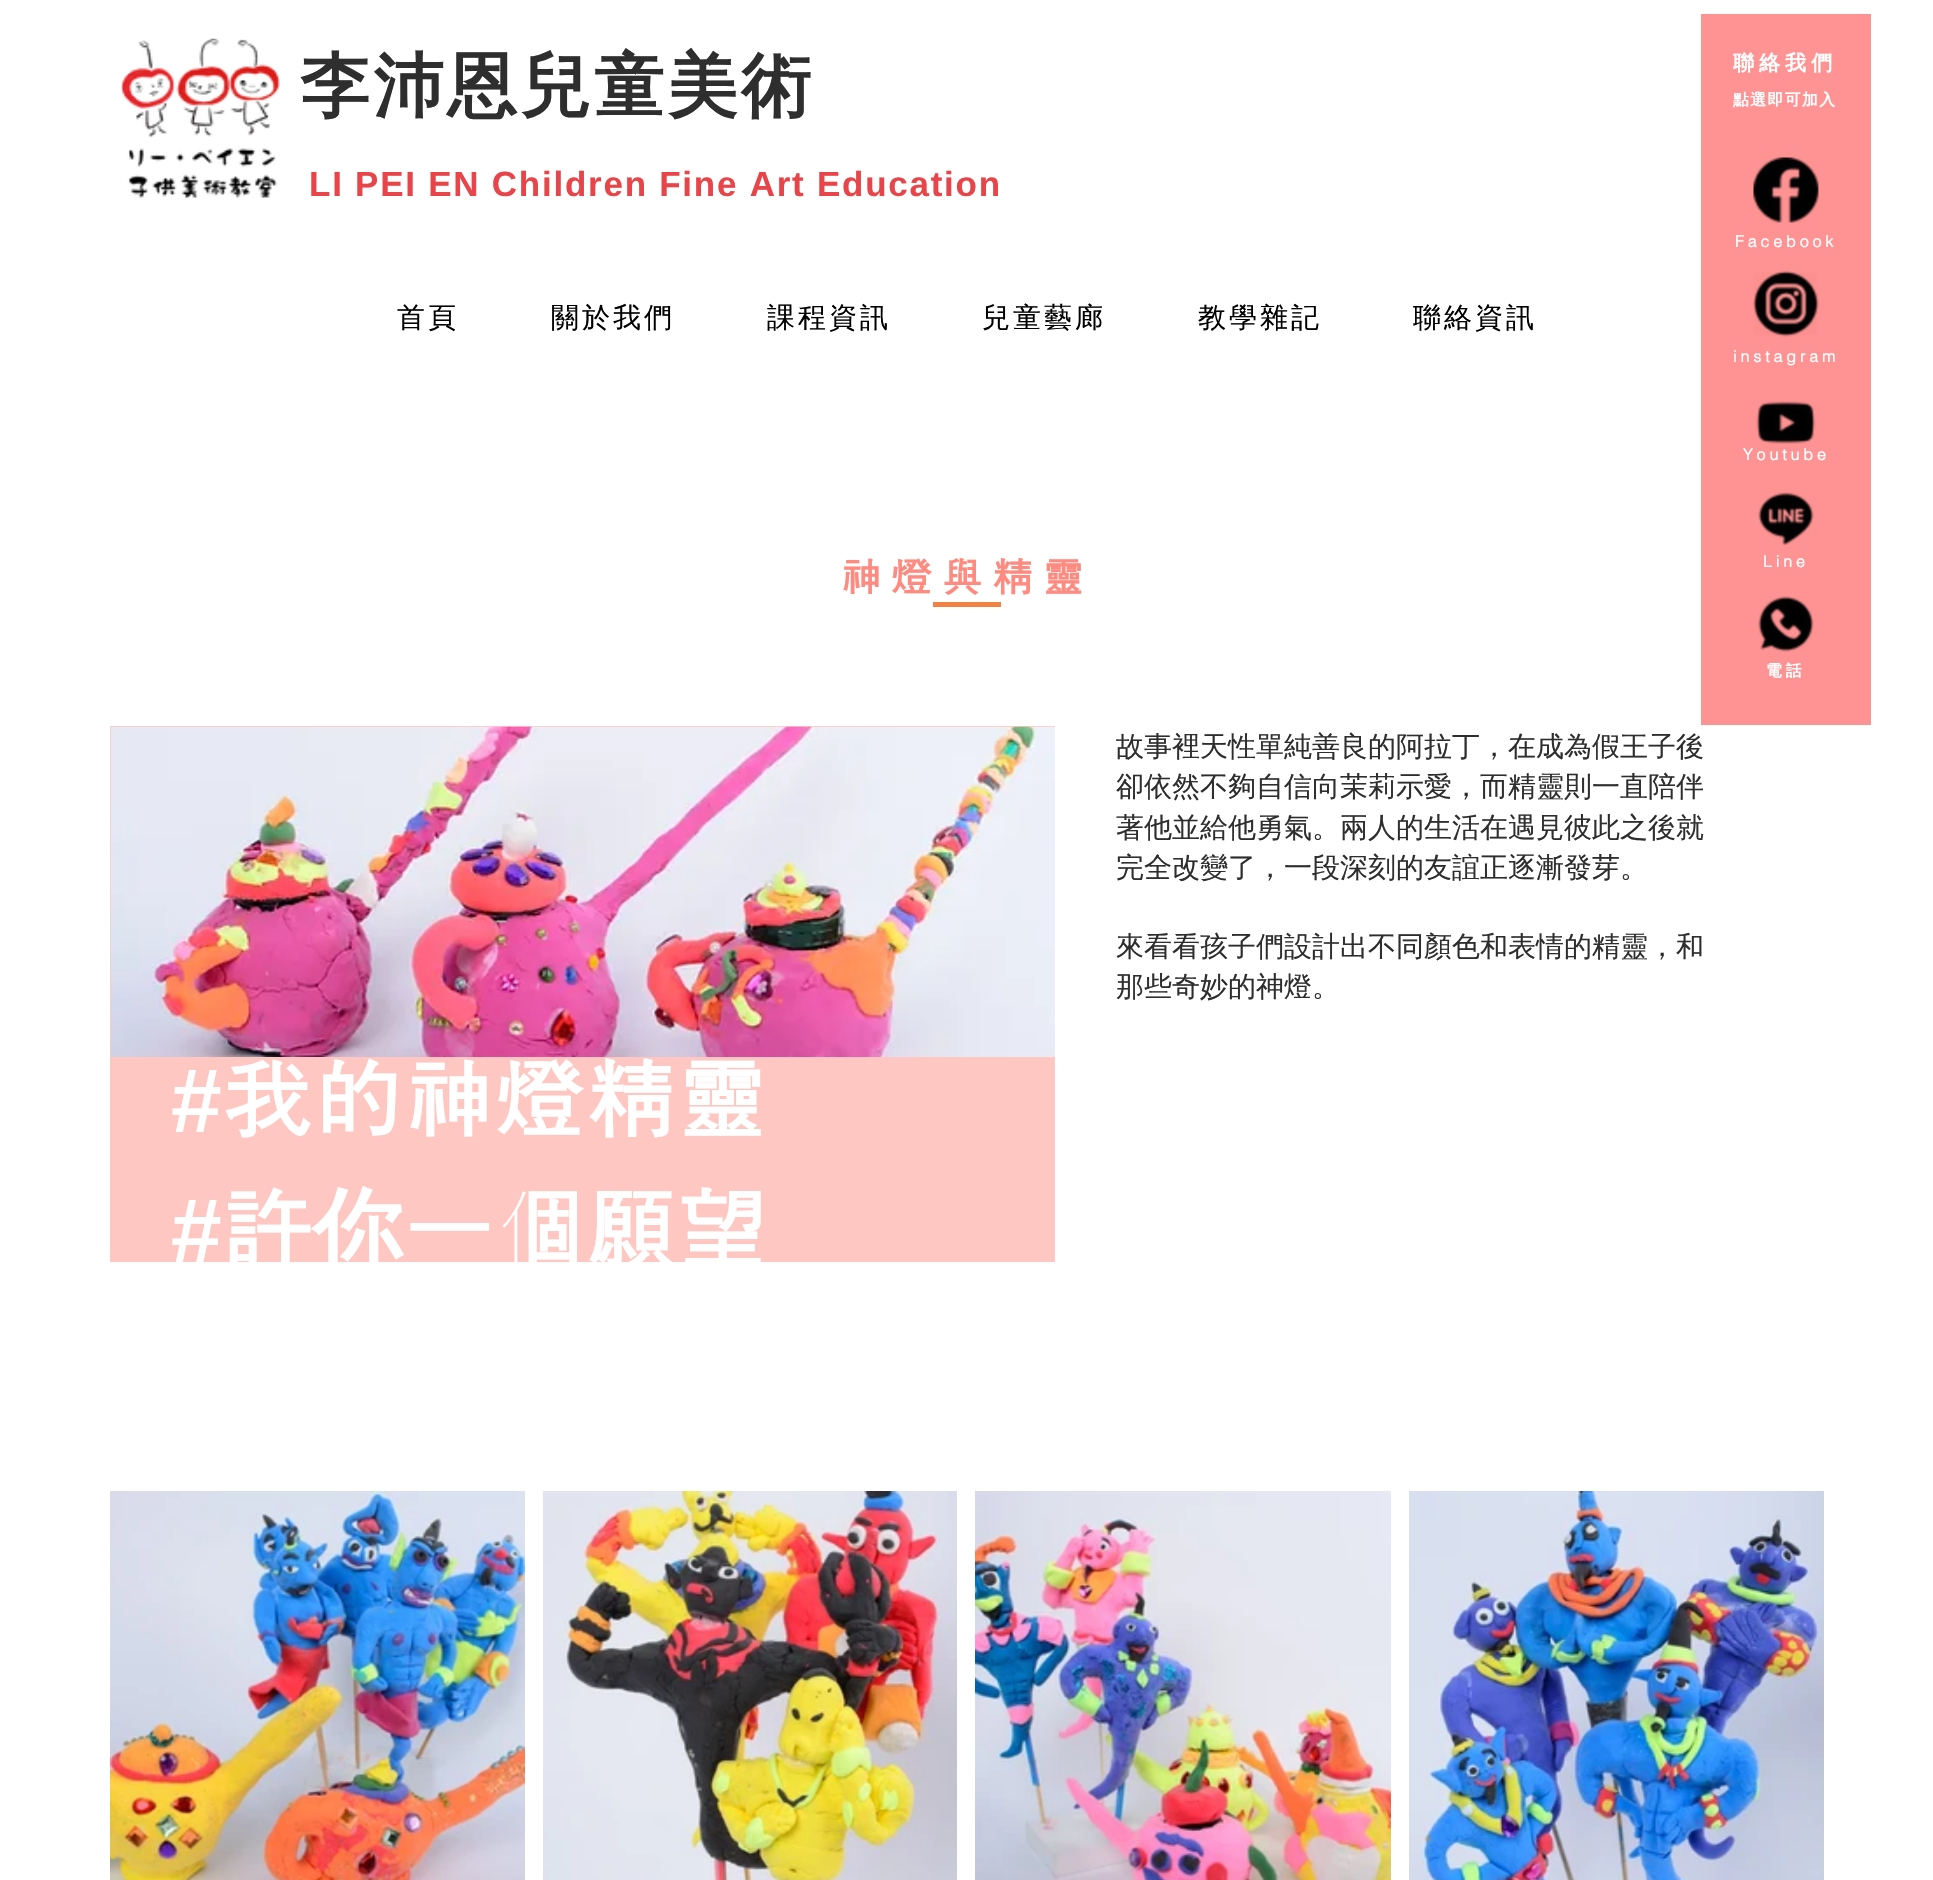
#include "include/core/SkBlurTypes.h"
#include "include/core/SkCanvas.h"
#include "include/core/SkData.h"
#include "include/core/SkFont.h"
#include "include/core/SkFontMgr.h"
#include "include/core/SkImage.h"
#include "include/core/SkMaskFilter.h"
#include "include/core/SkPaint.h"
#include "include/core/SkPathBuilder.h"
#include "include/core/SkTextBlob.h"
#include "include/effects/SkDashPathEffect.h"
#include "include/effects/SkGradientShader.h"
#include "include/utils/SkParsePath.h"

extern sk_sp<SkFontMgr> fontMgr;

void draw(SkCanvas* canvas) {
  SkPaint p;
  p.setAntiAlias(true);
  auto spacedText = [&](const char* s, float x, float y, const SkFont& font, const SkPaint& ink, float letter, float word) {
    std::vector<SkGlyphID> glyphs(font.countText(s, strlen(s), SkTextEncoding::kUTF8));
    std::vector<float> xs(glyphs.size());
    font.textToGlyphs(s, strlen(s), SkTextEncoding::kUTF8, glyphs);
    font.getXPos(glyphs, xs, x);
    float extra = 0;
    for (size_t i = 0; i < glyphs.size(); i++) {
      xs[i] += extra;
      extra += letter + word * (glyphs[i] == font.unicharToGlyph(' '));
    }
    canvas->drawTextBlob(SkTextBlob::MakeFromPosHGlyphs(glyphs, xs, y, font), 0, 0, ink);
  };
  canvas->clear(SK_ColorWHITE);
  canvas->drawImageRect(SkImages::DeferredFromEncodedData(SkData::MakeFromFileName("images/1.png")), SkRect::MakeLTRB(121, 38, 280, 198), SkSamplingOptions());
  p.setColor(SkColorSetRGB(255, 146, 146));
  canvas->drawRect(SkRect::MakeLTRB(1701, 14, 1871, 725), p);
  canvas->drawImageRect(SkImages::DeferredFromEncodedData(SkData::MakeFromFileName("images/2.png")), SkRect::MakeLTRB(1753, 157, 1819, 223), SkSamplingOptions());
  canvas->drawImageRect(SkImages::DeferredFromEncodedData(SkData::MakeFromFileName("images/3.png")), SkRect::MakeLTRB(1753, 270, 1819, 337), SkSamplingOptions());
  canvas->drawImageRect(SkImages::DeferredFromEncodedData(SkData::MakeFromFileName("images/4.png")), SkRect::MakeLTRB(1758, 492, 1814, 546), SkSamplingOptions());
  canvas->drawImageRect(SkImages::DeferredFromEncodedData(SkData::MakeFromFileName("images/5.png")), SkRect::MakeLTRB(1758, 596, 1814, 652), SkSamplingOptions());
  canvas->drawImageRect(SkImages::DeferredFromEncodedData(SkData::MakeFromFileName("images/6.png")), SkRect::MakeLTRB(1756, 401, 1816, 444), SkSamplingOptions());
  p.setColor(SkColorSetRGB(242, 130, 65));
  canvas->drawRect(SkRect::MakeLTRB(933, 602, 1001, 607), p);
  p.setColor(SkColorSetRGB(255, 199, 194));
  canvas->drawRect(SkRect::MakeLTRB(110, 726, 1055, 1262), p);
  canvas->drawImageRect(SkImages::DeferredFromEncodedData(SkData::MakeFromFileName("images/7.png")), SkRect::MakeLTRB(110, 726, 1055, 1057), SkSamplingOptions());
  canvas->drawImageRect(SkImages::DeferredFromEncodedData(SkData::MakeFromFileName("images/8.png")), SkRect::MakeLTRB(110, 1491, 525, 1880), SkSamplingOptions());
  canvas->drawImageRect(SkImages::DeferredFromEncodedData(SkData::MakeFromFileName("images/9.png")), SkRect::MakeLTRB(543, 1491, 957, 1880), SkSamplingOptions());
  canvas->drawImageRect(SkImages::DeferredFromEncodedData(SkData::MakeFromFileName("images/10.png")), SkRect::MakeLTRB(975, 1491, 1391, 1880), SkSamplingOptions());
  canvas->drawImageRect(SkImages::DeferredFromEncodedData(SkData::MakeFromFileName("images/11.png")), SkRect::MakeLTRB(1409, 1491, 1824, 1880), SkSamplingOptions());
  SkFont font1(fontMgr->matchFamilyStyle("WenQuanYi Zen Hei", SkFontStyle::Bold()), 70);
  font1.setSubpixel(true);
  p.setColor(SkColorSetRGB(47, 46, 46));
  spacedText("李沛恩兒童美術", 300, 110, font1, p, 3.5f, 0);
  SkFont font2(fontMgr->matchFamilyStyle("Liberation Sans", SkFontStyle::Bold()), 35);
  font2.setSubpixel(true);
  p.setColor(SkColorSetRGB(231, 69, 73));
  spacedText("LI PEI EN Children Fine Art Education", 309, 196, font2, p, 1.75f, 0);
  SkFont font3(fontMgr->matchFamilyStyle("WenQuanYi Zen Hei", SkFontStyle(500, SkFontStyle::kNormal_Width, SkFontStyle::kUpright_Slant)), 28);
  font3.setSubpixel(true);
  p.setColor(SK_ColorBLACK);
  spacedText("首頁", 397, 327, font3, p, 3, 0);
  spacedText("關於我們", 551, 327, font3, p, 3, 0);
  spacedText("課程資訊", 767, 327, font3, p, 3, 0);
  spacedText("兒童藝廊", 982, 327, font3, p, 3, 0);
  spacedText("教學雜記", 1198, 327, font3, p, 3, 0);
  spacedText("聯絡資訊", 1413, 327, font3, p, 3, 0);
  SkFont font4(fontMgr->matchFamilyStyle("WenQuanYi Zen Hei", SkFontStyle::Bold()), 21);
  font4.setSubpixel(true);
  p.setColor(SK_ColorWHITE);
  spacedText("聯絡我們", 1733, 70, font4, p, 5, 0);
  SkFont font5(fontMgr->matchFamilyStyle("WenQuanYi Zen Hei", SkFontStyle::Bold()), 15.75f);
  font5.setSubpixel(true);
  spacedText("點選即可加入", 1733, 105, font5, p, 1.5f, 0);
  SkFont font6(fontMgr->matchFamilyStyle("helvetica", SkFontStyle::Bold()), 15.75f);
  font6.setSubpixel(true);
  spacedText("Facebook", 1735, 247, font6, p, 4, 0);
  spacedText("instagram", 1733, 362, font6, p, 4, 0);
  spacedText("Line", 1763, 567, font6, p, 4, 0);
  spacedText("電話", 1766, 676, font5, p, 4, 0);
  spacedText("Youtube", 1743, 460, font6, p, 4, 0);
  SkFont font7(fontMgr->matchFamilyStyle("Dotum", SkFontStyle::Bold()), 42);
  font7.setSubpixel(true);
  p.setColor(SkColorSetRGB(255, 138, 127));
  spacedText("神燈與精靈", 840, 592, font7, p, 8.5f, 0);
  p.setColor(SkColorSetRGB(47, 46, 46));
  canvas->drawString("故事裡天性單純善良的阿拉丁，在成為假王子後", 1116, 756, font3, p);
  canvas->drawString("卻依然不夠自信向茉莉示愛，而精靈則一直陪伴", 1116, 796, font3, p);
  canvas->drawString("著他並給他勇氣。兩人的生活在遇見彼此之後就", 1116, 837, font3, p);
  canvas->drawString("完全改變了，一段深刻的友誼正逐漸發芽。", 1116, 877, font3, p);
  canvas->drawString("來看看孩子們設計出不同顏色和表情的精靈，和", 1116, 956, font3, p);
  canvas->drawString("那些奇妙的神燈。", 1116, 996, font3, p);
  SkFont font8(fontMgr->matchFamilyStyle("Liberation Sans", SkFontStyle::Bold()), 91);
  font8.setSubpixel(true);
  p.setColor(SK_ColorWHITE);
  canvas->drawString("#", 171, 1132, font8, p);
  SkFont font9(fontMgr->matchFamilyStyle("Dotum", SkFontStyle::Bold()), 91);
  font9.setSubpixel(true);
  canvas->drawString("我的神燈精靈", 221, 1132, font9, p);
  canvas->drawString("#", 171, 1262, font8, p);
  canvas->drawString("許", 221, 1262, font9, p);
  SkFont font10(fontMgr->matchFamilyStyle("WenQuanYi Zen Hei", SkFontStyle::Bold()), 91);
  font10.setSubpixel(true);
  canvas->drawString("你", 312, 1262, font10, p);
  canvas->drawString("一個願望", 403, 1262, font9, p);
}
